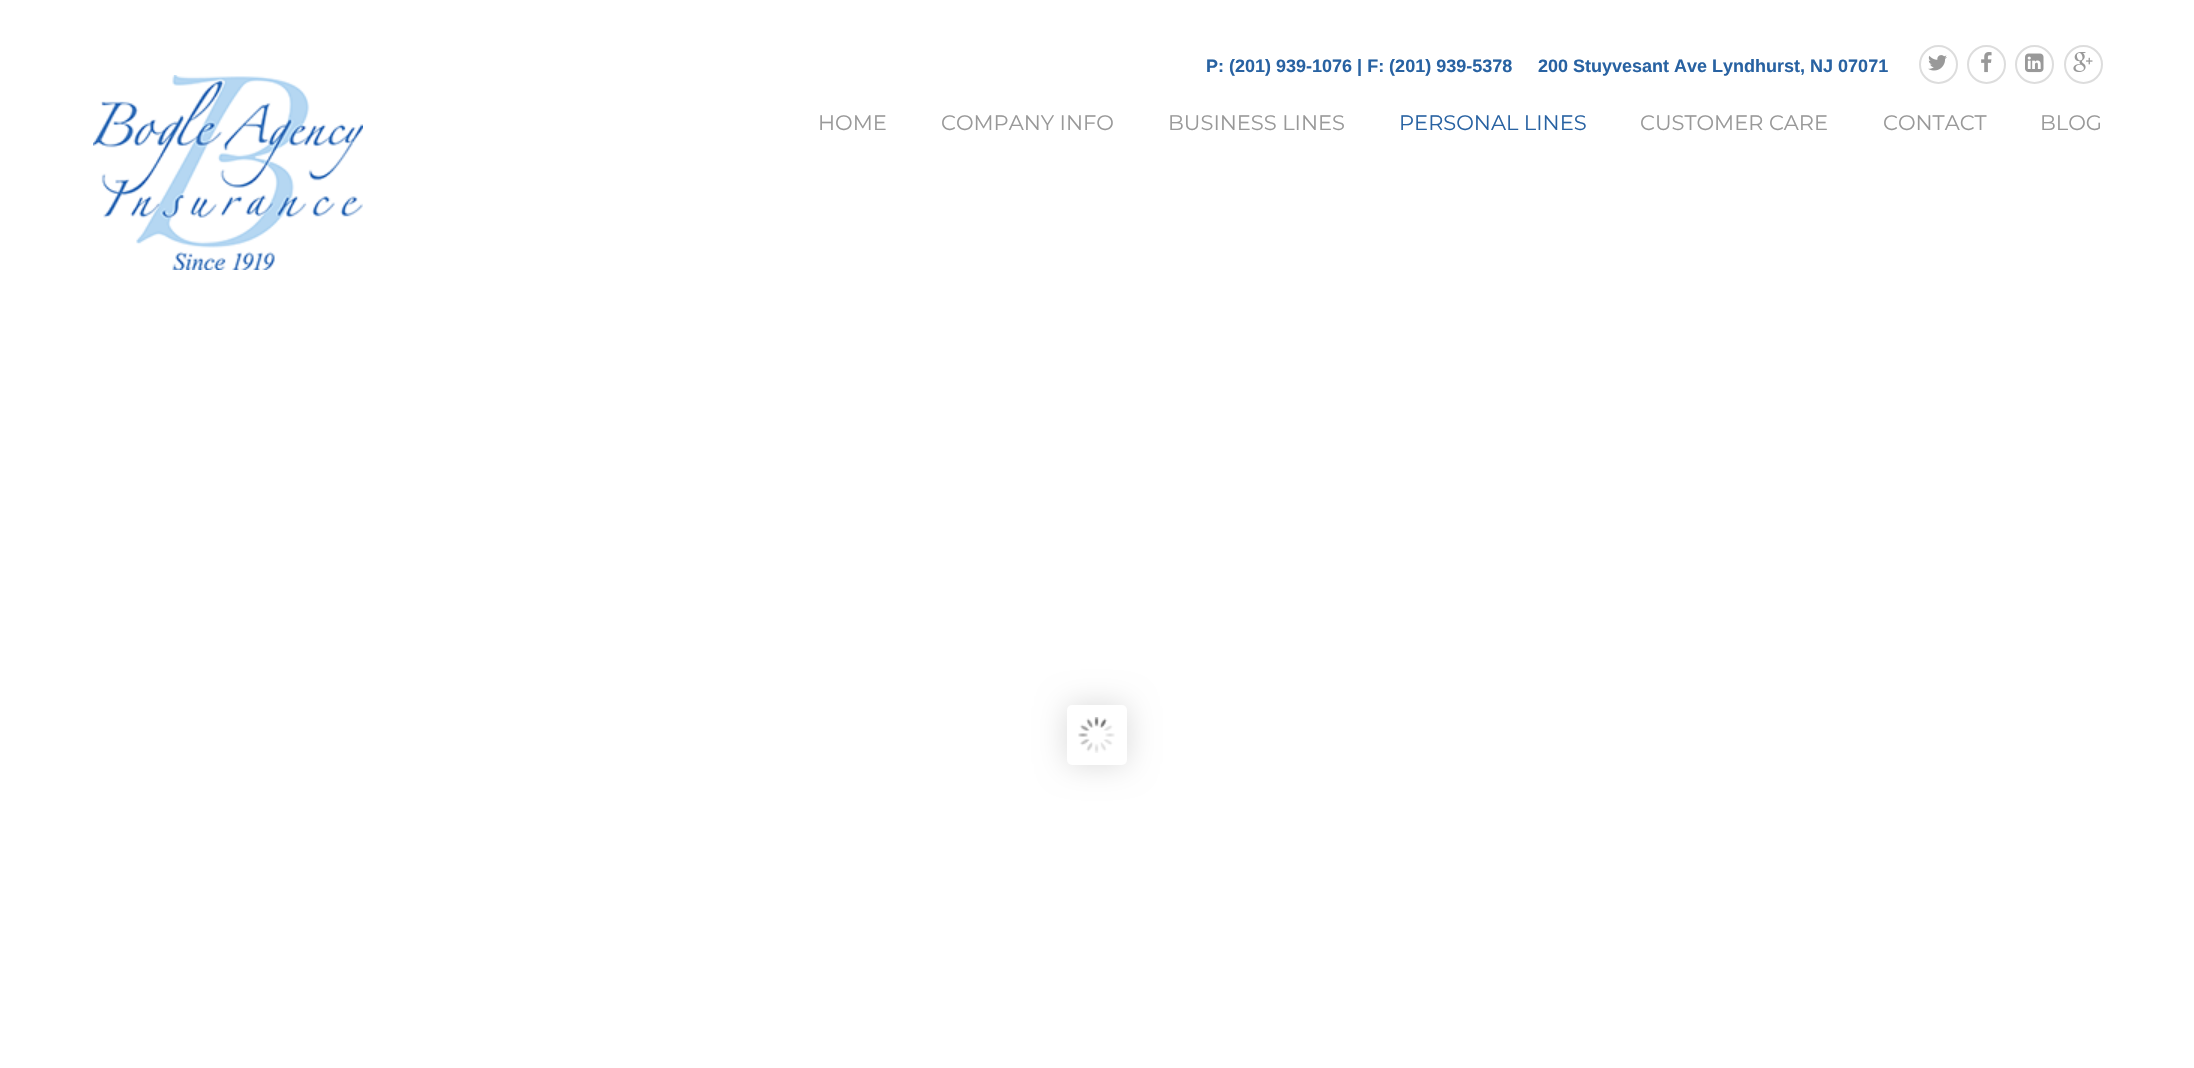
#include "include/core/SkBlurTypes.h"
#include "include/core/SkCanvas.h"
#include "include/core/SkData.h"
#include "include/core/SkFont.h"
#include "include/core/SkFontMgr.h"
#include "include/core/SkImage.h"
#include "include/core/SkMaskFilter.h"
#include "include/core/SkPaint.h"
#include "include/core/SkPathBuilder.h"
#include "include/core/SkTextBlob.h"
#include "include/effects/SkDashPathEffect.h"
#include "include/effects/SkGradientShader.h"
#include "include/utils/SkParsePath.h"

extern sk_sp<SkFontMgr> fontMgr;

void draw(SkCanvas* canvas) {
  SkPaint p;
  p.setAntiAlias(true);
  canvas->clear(SK_ColorWHITE);
  canvas->drawImageRect(SkImages::DeferredFromEncodedData(SkData::MakeFromFileName("images/1.png")), SkRect::MakeLTRB(93, 75, 363, 270), SkSamplingOptions());
  p.setStyle(SkPaint::kStroke_Style);
  p.setStrokeWidth(2);
  p.setColor(SkColorSetRGB(221, 221, 221));
  canvas->drawCircle(1938.5f, 64.5f, 18.5f, p);
  canvas->drawImageRect(SkImages::DeferredFromEncodedData(SkData::MakeFromFileName("images/2.png")), SkRect::MakeLTRB(1928, 55, 1947, 71), SkSamplingOptions());
  canvas->drawCircle(1986.5f, 64.5f, 18.5f, p);
  canvas->drawImageRect(SkImages::DeferredFromEncodedData(SkData::MakeFromFileName("images/3.png")), SkRect::MakeLTRB(1981, 52, 1992, 73), SkSamplingOptions());
  canvas->drawCircle(2034.5f, 64.5f, 18.5f, p);
  canvas->drawImageRect(SkImages::DeferredFromEncodedData(SkData::MakeFromFileName("images/4.png")), SkRect::MakeLTRB(2025, 53, 2044, 73), SkSamplingOptions());
  canvas->drawCircle(2083.5f, 64.5f, 18.5f, p);
  canvas->drawImageRect(SkImages::DeferredFromEncodedData(SkData::MakeFromFileName("images/5.png")), SkRect::MakeLTRB(2073, 52, 2093, 72), SkSamplingOptions());
  p.setStyle(SkPaint::kFill_Style);
  p.setColor(SkColorSetARGB(38, 0, 0, 0));
  p.setMaskFilter(SkMaskFilter::MakeBlur(kNormal_SkBlurStyle, 15));
  canvas->drawRoundRect(SkRect::MakeLTRB(1067, 705, 1127, 765), 5, 5, p);
  p.setMaskFilter(nullptr);
  p.setColor(SK_ColorWHITE);
  canvas->drawRoundRect(SkRect::MakeLTRB(1067, 705, 1127, 765), 5, 5, p);
  canvas->drawImageRect(SkImages::DeferredFromEncodedData(SkData::MakeFromFileName("images/6.png")), SkRect::MakeLTRB(1078, 717, 1115, 753), SkSamplingOptions());
  SkFont font1(fontMgr->matchFamilyStyle("Liberation Sans", SkFontStyle::Bold()), 18);
  font1.setSubpixel(true);
  p.setColor(SkColorSetRGB(40, 98, 162));
  canvas->drawString("P: (201) 939-1076 | F: (201) 939-5378", 1206, 72, font1, p);
  canvas->drawString("200 Stuyvesant Ave Lyndhurst, NJ 07071", 1538, 72, font1, p);
  SkFont font2(fontMgr->matchFamilyStyle("Montserrat", SkFontStyle::Normal()), 21);
  font2.setSubpixel(true);
  p.setColor(SkColorSetRGB(153, 153, 153));
  canvas->drawString("HOME", 818, 130, font2, p);
  canvas->drawString("COMPANY INFO", 941, 130, font2, p);
  canvas->drawString("BUSINESS LINES", 1168, 130, font2, p);
  p.setColor(SkColorSetRGB(40, 98, 162));
  canvas->drawString("PERSONAL LINES", 1399, 130, font2, p);
  p.setColor(SkColorSetRGB(153, 153, 153));
  canvas->drawString("CUSTOMER CARE", 1640, 130, font2, p);
  canvas->drawString("CONTACT", 1883, 130, font2, p);
  canvas->drawString("BLOG", 2040, 130, font2, p);
}
